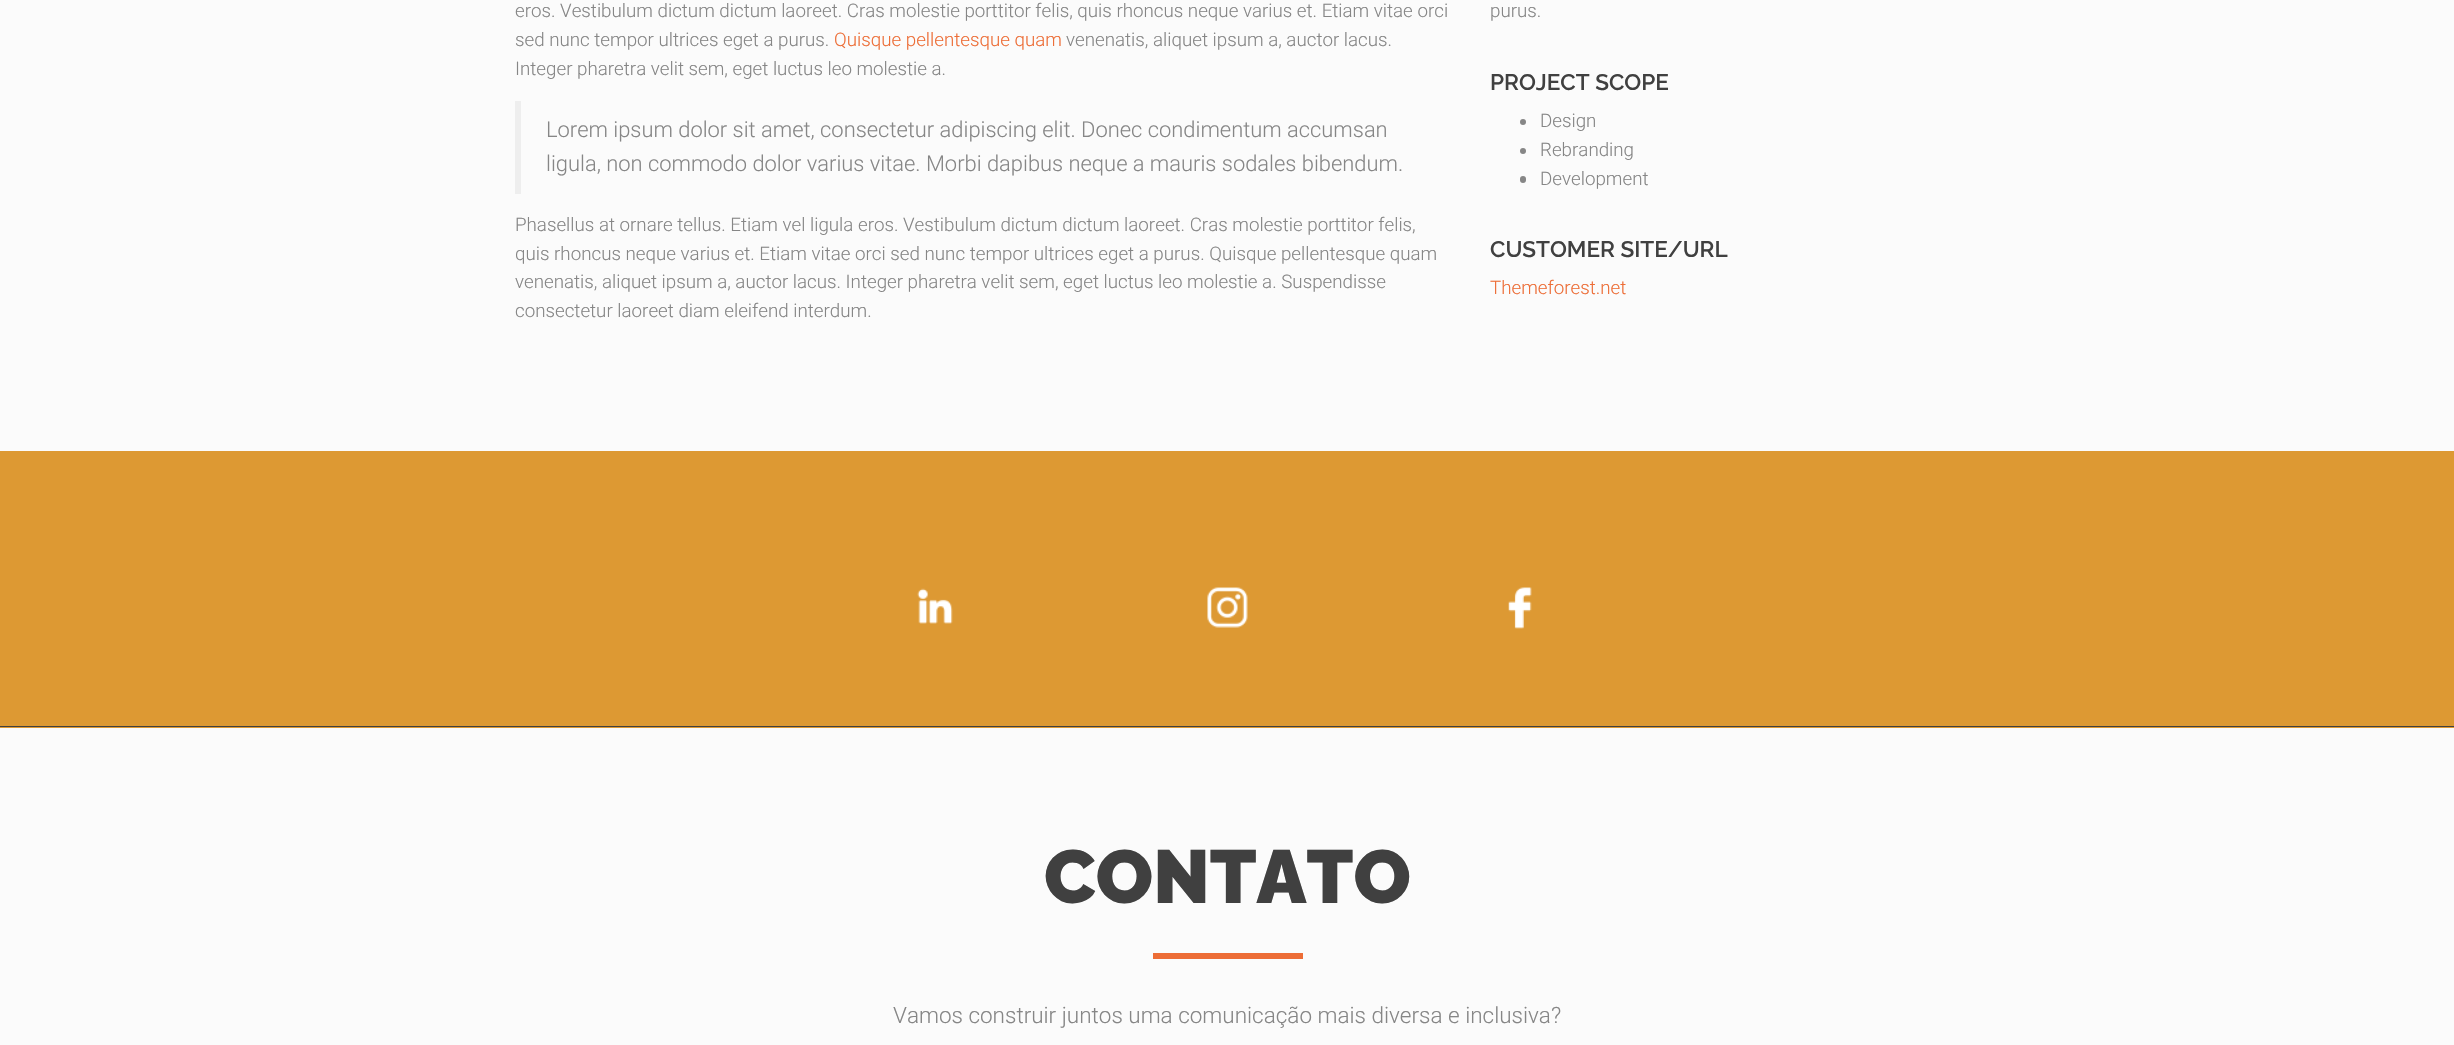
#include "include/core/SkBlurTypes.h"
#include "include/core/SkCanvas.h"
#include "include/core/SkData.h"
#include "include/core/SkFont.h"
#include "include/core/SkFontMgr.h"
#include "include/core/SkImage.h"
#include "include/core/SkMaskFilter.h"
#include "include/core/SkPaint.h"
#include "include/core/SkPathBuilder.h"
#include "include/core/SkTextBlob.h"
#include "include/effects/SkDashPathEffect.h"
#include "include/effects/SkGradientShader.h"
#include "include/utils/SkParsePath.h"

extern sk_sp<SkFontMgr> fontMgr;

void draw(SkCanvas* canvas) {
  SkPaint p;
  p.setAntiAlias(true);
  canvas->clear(SkColorSetRGB(251, 251, 251));
  p.setColor(SkColorSetRGB(238, 238, 238));
  canvas->drawRect(SkRect::MakeLTRB(515, 101, 521, 194), p);
  p.setColor(SkColorSetRGB(134, 134, 134));
  canvas->drawCircle(1523, 122, 3, p);
  canvas->drawCircle(1523, 151, 3, p);
  canvas->drawRoundRect(SkRect::MakeLTRB(1520, 176, 1526, 183), 3, 3, p);
  p.setColor(SkColorSetRGB(221, 153, 51));
  canvas->drawRect(SkRect::MakeLTRB(0, 451, 2454, 728), p);
  p.setColor(SkColorSetRGB(64, 64, 64));
  canvas->drawRect(SkRect::MakeLTRB(0, 726, 2454, 727), p);
  canvas->drawImageRect(SkImages::DeferredFromEncodedData(SkData::MakeFromFileName("images/1.png")), SkRect::MakeLTRB(917, 588, 953, 624), SkSamplingOptions());
  canvas->drawImageRect(SkImages::DeferredFromEncodedData(SkData::MakeFromFileName("images/2.png")), SkRect::MakeLTRB(1207, 587, 1248, 628), SkSamplingOptions());
  canvas->drawImageRect(SkImages::DeferredFromEncodedData(SkData::MakeFromFileName("images/3.png")), SkRect::MakeLTRB(1508, 587, 1532, 629), SkSamplingOptions());
  p.setColor(SkColorSetRGB(237, 109, 54));
  canvas->drawRect(SkRect::MakeLTRB(1153, 953, 1303, 959), p);
  SkFont font1(fontMgr->matchFamilyStyle("Roboto", SkFontStyle(300, SkFontStyle::kNormal_Width, SkFontStyle::kUpright_Slant)), 18.75f);
  font1.setSubpixel(true);
  p.setColor(SkColorSetRGB(134, 134, 134));
  canvas->drawString("eros. Vestibulum dictum dictum laoreet. Cras molestie porttitor felis, quis rhoncus neque varius et. Etiam vitae orci", 515, 17, font1, p);
  canvas->drawString("sed nunc tempor ultrices eget a purus.", 515, 46, font1, p);
  p.setColor(SkColorSetRGB(237, 109, 54));
  canvas->drawString("Quisque pellentesque quam", 834, 46, font1, p);
  p.setColor(SkColorSetRGB(134, 134, 134));
  canvas->drawString("venenatis, aliquet ipsum a, auctor lacus.", 1066, 46, font1, p);
  canvas->drawString("Integer pharetra velit sem, eget luctus leo molestie a.", 515, 75, font1, p);
  SkFont font2(fontMgr->matchFamilyStyle("Roboto", SkFontStyle(300, SkFontStyle::kNormal_Width, SkFontStyle::kUpright_Slant)), 21.9f);
  font2.setSubpixel(true);
  canvas->drawString("Lorem ipsum dolor sit amet, consectetur adipiscing elit. Donec condimentum accumsan", 546, 137, font2, p);
  canvas->drawString("ligula, non commodo dolor varius vitae. Morbi dapibus neque a mauris sodales bibendum.", 546, 171, font2, p);
  canvas->drawString("Phasellus at ornare tellus. Etiam vel ligula eros. Vestibulum dictum dictum laoreet. Cras molestie porttitor felis,", 515, 231, font1, p);
  canvas->drawString("quis rhoncus neque varius et. Etiam vitae orci sed nunc tempor ultrices eget a purus. Quisque pellentesque quam", 515, 260, font1, p);
  canvas->drawString("venenatis, aliquet ipsum a, auctor lacus. Integer pharetra velit sem, eget luctus leo molestie a. Suspendisse", 515, 288, font1, p);
  canvas->drawString("consectetur laoreet diam eleifend interdum.", 515, 317, font1, p);
  canvas->drawString("purus.", 1490, 17, font1, p);
  SkFont font3(fontMgr->matchFamilyStyle("Raleway", SkFontStyle(600, SkFontStyle::kNormal_Width, SkFontStyle::kUpright_Slant)), 22.5f);
  font3.setSubpixel(true);
  p.setColor(SkColorSetRGB(64, 64, 64));
  canvas->drawString("PROJECT SCOPE", 1490, 90, font3, p);
  p.setColor(SkColorSetRGB(134, 134, 134));
  canvas->drawString("Design", 1540, 127, font1, p);
  canvas->drawString("Rebranding", 1540, 156, font1, p);
  canvas->drawString("Development", 1540, 185, font1, p);
  p.setColor(SkColorSetRGB(64, 64, 64));
  canvas->drawString("CUSTOMER SITE/URL", 1490, 257, font3, p);
  p.setColor(SkColorSetRGB(237, 109, 54));
  canvas->drawString("Themeforest.net", 1490, 294, font1, p);
  SkFont font4(fontMgr->matchFamilyStyle("Raleway", SkFontStyle(900, SkFontStyle::kNormal_Width, SkFontStyle::kUpright_Slant)), 75);
  font4.setSubpixel(true);
  p.setColor(SkColorSetRGB(64, 64, 64));
  canvas->drawString("CONTATO", 1044, 903, font4, p);
  SkFont font5(fontMgr->matchFamilyStyle("Roboto", SkFontStyle(300, SkFontStyle::kNormal_Width, SkFontStyle::kUpright_Slant)), 22.5f);
  font5.setSubpixel(true);
  p.setColor(SkColorSetRGB(134, 134, 134));
  canvas->drawString("Vamos construir juntos uma comunicação mais diversa e inclusiva?", 893, 1023, font5, p);
}
